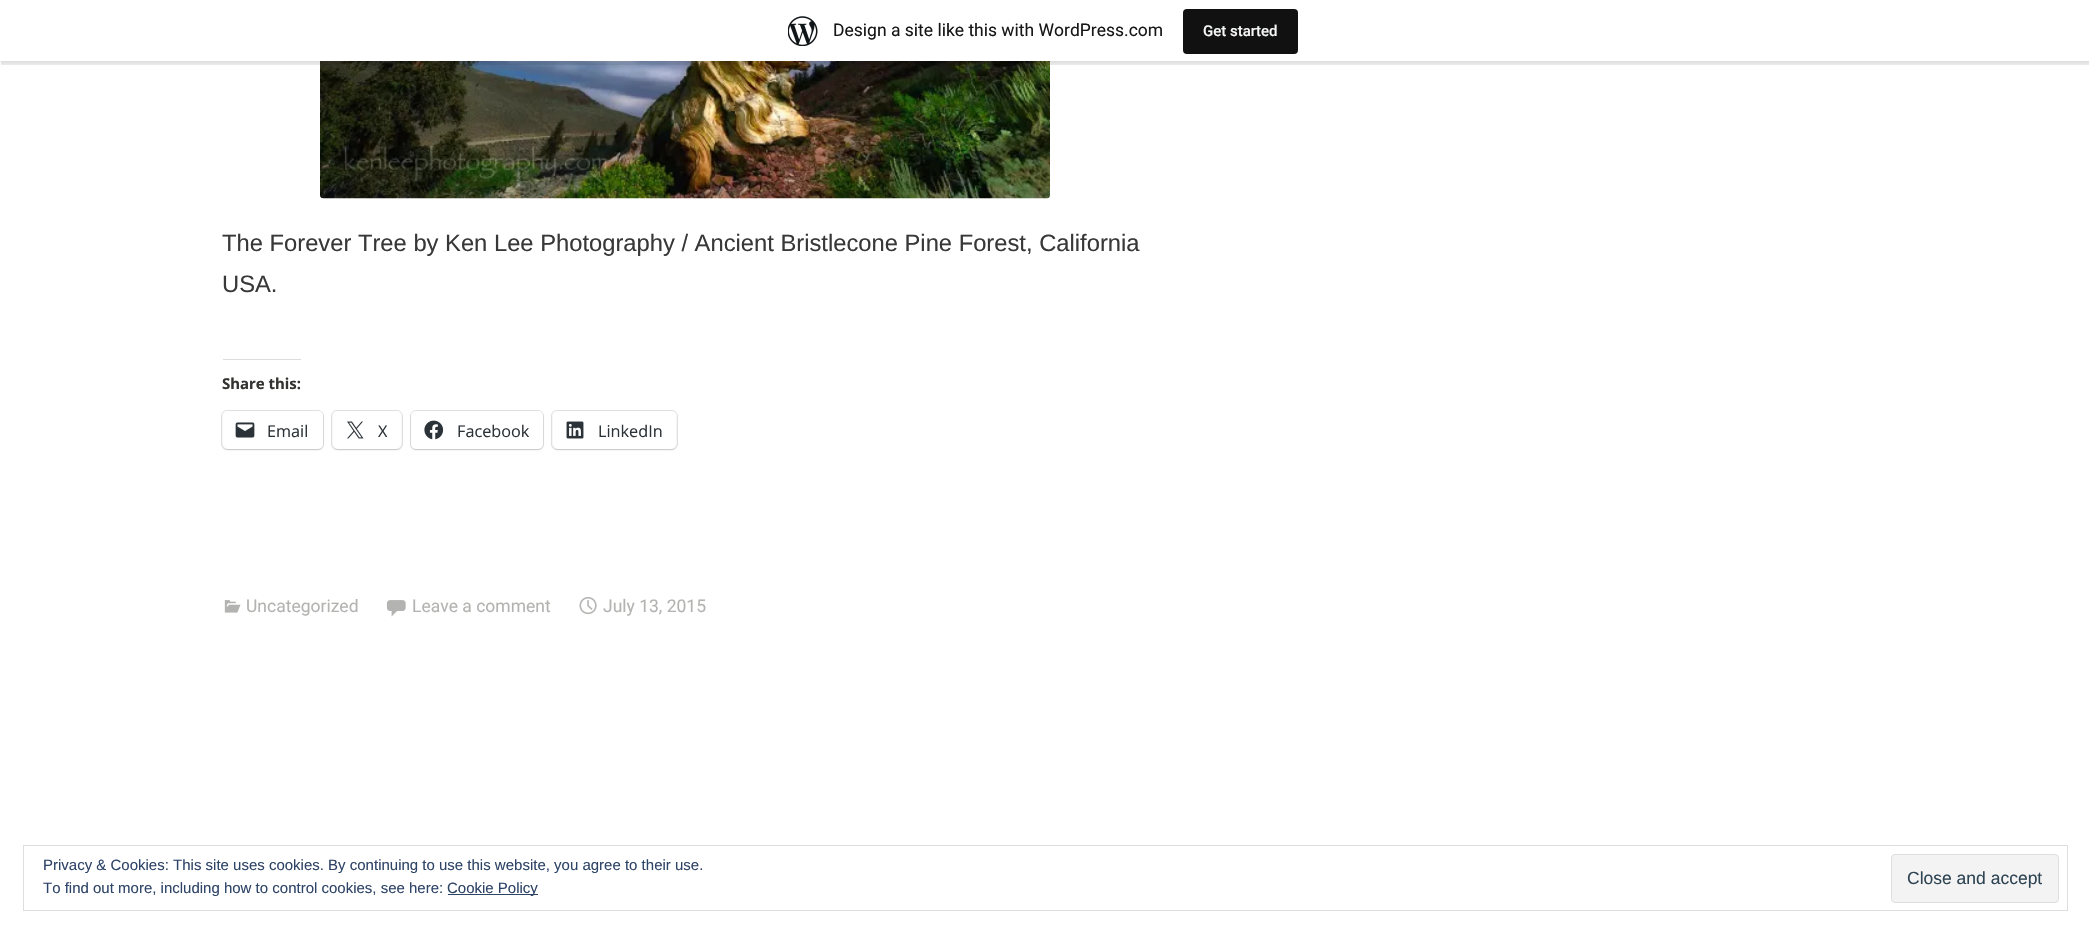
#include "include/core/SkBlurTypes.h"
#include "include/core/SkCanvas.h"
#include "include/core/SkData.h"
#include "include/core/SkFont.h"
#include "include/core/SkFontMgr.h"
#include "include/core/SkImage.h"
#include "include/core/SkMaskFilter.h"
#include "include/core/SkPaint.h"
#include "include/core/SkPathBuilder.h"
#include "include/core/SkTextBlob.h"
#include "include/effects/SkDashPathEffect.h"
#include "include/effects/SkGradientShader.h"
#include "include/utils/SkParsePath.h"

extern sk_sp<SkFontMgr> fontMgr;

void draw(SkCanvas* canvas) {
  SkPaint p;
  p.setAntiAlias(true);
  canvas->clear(SK_ColorWHITE);
  canvas->drawImageRect(SkImages::DeferredFromEncodedData(SkData::MakeFromFileName("images/2.png")), SkRect::MakeLTRB(320, 61, 1050, 199), SkSamplingOptions());
  p.setColor(SkColorSetARGB(13, 0, 0, 0));
  p.setMaskFilter(SkMaskFilter::MakeBlur(kNormal_SkBlurStyle, 1));
  canvas->drawRect(SkRect::MakeLTRB(0, 1, 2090, 63), p);
  p.setMaskFilter(nullptr);
  p.setColor(SkColorSetARGB(20, 0, 0, 0));
  canvas->drawPath(SkPathBuilder().moveTo(1, 61).lineTo(1, 65).lineTo(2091, 65).lineTo(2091, 4).lineTo(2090, 4).lineTo(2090, 61).close().detach(), p);
  p.setColor(SK_ColorWHITE);
  canvas->drawRect(SkRect::MakeLTRB(0, 0, 2089, 61), p);
  canvas->drawImageRect(SkImages::DeferredFromEncodedData(SkData::MakeFromFileName("images/1.png")), SkRect::MakeLTRB(788, 16, 818, 46), SkSamplingOptions());
  p.setColor(SkColorSetRGB(17, 17, 17));
  canvas->drawRoundRect(SkRect::MakeLTRB(1183, 9, 1298, 54), 4, 4, p);
  p.setColor(SkColorSetRGB(220, 220, 222));
  canvas->drawRect(SkRect::MakeLTRB(223, 359, 301, 360), p);
  p.setStyle(SkPaint::kStroke_Style);
  p.setStrokeWidth(1);
  p.setColor(SkColorSetRGB(224, 224, 224));
  canvas->drawRoundRect(SkRect::MakeLTRB(221.5f, 410.5f, 323.5f, 449.5f), 5.5f, 5.5f, p);
  p.setStyle(SkPaint::kFill_Style);
  p.setColor(SkColorSetARGB(31, 0, 0, 0));
  p.setMaskFilter(SkMaskFilter::MakeBlur(kNormal_SkBlurStyle, 1));
  canvas->drawRoundRect(SkRect::MakeLTRB(223, 413, 323, 450), 5, 5, p);
  p.setMaskFilter(nullptr);
  p.setColor(SK_ColorWHITE);
  canvas->drawRoundRect(SkRect::MakeLTRB(223, 411, 323, 449), 5, 5, p);
  canvas->drawImageRect(SkImages::DeferredFromEncodedData(SkData::MakeFromFileName("images/3.png")), SkRect::MakeLTRB(235, 422, 255, 438), SkSamplingOptions());
  p.setStyle(SkPaint::kStroke_Style);
  p.setColor(SkColorSetRGB(224, 224, 224));
  canvas->drawRoundRect(SkRect::MakeLTRB(331.5f, 410.5f, 402.5f, 449.5f), 5.5f, 5.5f, p);
  p.setStyle(SkPaint::kFill_Style);
  p.setColor(SkColorSetARGB(31, 0, 0, 0));
  p.setMaskFilter(SkMaskFilter::MakeBlur(kNormal_SkBlurStyle, 1));
  canvas->drawRoundRect(SkRect::MakeLTRB(333, 413, 401, 450), 5, 5, p);
  p.setMaskFilter(nullptr);
  p.setColor(SK_ColorWHITE);
  canvas->drawRoundRect(SkRect::MakeLTRB(333, 411, 401, 449), 5, 5, p);
  canvas->drawImageRect(SkImages::DeferredFromEncodedData(SkData::MakeFromFileName("images/4.png")), SkRect::MakeLTRB(347, 421, 364, 439), SkSamplingOptions());
  p.setStyle(SkPaint::kStroke_Style);
  p.setColor(SkColorSetRGB(224, 224, 224));
  canvas->drawRoundRect(SkRect::MakeLTRB(410.5f, 410.5f, 543.5f, 449.5f), 5.5f, 5.5f, p);
  p.setStyle(SkPaint::kFill_Style);
  p.setColor(SkColorSetARGB(31, 0, 0, 0));
  p.setMaskFilter(SkMaskFilter::MakeBlur(kNormal_SkBlurStyle, 1));
  canvas->drawRoundRect(SkRect::MakeLTRB(411, 413, 543, 450), 5, 5, p);
  p.setMaskFilter(nullptr);
  p.setColor(SK_ColorWHITE);
  canvas->drawRoundRect(SkRect::MakeLTRB(411, 411, 543, 449), 5, 5, p);
  canvas->drawImageRect(SkImages::DeferredFromEncodedData(SkData::MakeFromFileName("images/5.png")), SkRect::MakeLTRB(424, 420, 444, 440), SkSamplingOptions());
  p.setStyle(SkPaint::kStroke_Style);
  p.setColor(SkColorSetRGB(224, 224, 224));
  canvas->drawRoundRect(SkRect::MakeLTRB(551.5f, 410.5f, 677.5f, 449.5f), 5.5f, 5.5f, p);
  p.setStyle(SkPaint::kFill_Style);
  p.setColor(SkColorSetARGB(31, 0, 0, 0));
  p.setMaskFilter(SkMaskFilter::MakeBlur(kNormal_SkBlurStyle, 1));
  canvas->drawRoundRect(SkRect::MakeLTRB(553, 413, 676, 450), 5, 5, p);
  p.setMaskFilter(nullptr);
  p.setColor(SK_ColorWHITE);
  canvas->drawRoundRect(SkRect::MakeLTRB(553, 411, 676, 449), 5, 5, p);
  canvas->drawImageRect(SkImages::DeferredFromEncodedData(SkData::MakeFromFileName("images/6.png")), SkRect::MakeLTRB(566, 421, 584, 439), SkSamplingOptions());
  canvas->drawImageRect(SkImages::DeferredFromEncodedData(SkData::MakeFromFileName("images/7.png")), SkRect::MakeLTRB(224, 600, 241, 613), SkSamplingOptions());
  canvas->drawImageRect(SkImages::DeferredFromEncodedData(SkData::MakeFromFileName("images/8.png")), SkRect::MakeLTRB(386, 600, 406, 617), SkSamplingOptions());
  canvas->drawImageRect(SkImages::DeferredFromEncodedData(SkData::MakeFromFileName("images/9.png")), SkRect::MakeLTRB(579, 597, 597, 615), SkSamplingOptions());
  p.setStyle(SkPaint::kStroke_Style);
  p.setColor(SkColorSetRGB(222, 222, 222));
  canvas->drawRect(SkRect::MakeLTRB(23.5f, 845.5f, 2067.5f, 910.5f), p);
  p.setStyle(SkPaint::kFill_Style);
  p.setColor(SkColorSetRGB(243, 243, 243));
  canvas->drawRoundRect(SkRect::MakeLTRB(1891.5f, 854.5f, 2058.5f, 902.5f), 3.5f, 3.5f, p);
  p.setStyle(SkPaint::kStroke_Style);
  p.setColor(SkColorSetRGB(222, 222, 222));
  canvas->drawRoundRect(SkRect::MakeLTRB(1891.5f, 854.5f, 2058.5f, 902.5f), 3.5f, 3.5f, p);
  p.setStyle(SkPaint::kFill_Style);
  p.setColor(SkColorSetRGB(46, 68, 103));
  canvas->drawRect(SkRect::MakeLTRB(448, 894, 538, 895), p);
  SkFont font1(fontMgr->matchFamilyStyle("Roboto", SkFontStyle::Normal()), 17.5f);
  font1.setSubpixel(true);
  p.setColor(SkColorSetRGB(23, 23, 23));
  canvas->drawString("Design a site like this with WordPress.com", 833, 36, font1, p);
  SkFont font2(fontMgr->matchFamilyStyle("Roboto", SkFontStyle(500, SkFontStyle::kNormal_Width, SkFontStyle::kUpright_Slant)), 15);
  font2.setSubpixel(true);
  p.setColor(SkColorSetRGB(246, 247, 247));
  canvas->drawString("Get started", 1203, 36, font2, p);
  SkFont font3(fontMgr->matchFamilyStyle("Arimo", SkFontStyle::Normal()), 23.75f);
  font3.setSubpixel(true);
  p.setColor(SkColorSetRGB(56, 56, 56));
  canvas->drawString("The Forever Tree by Ken Lee Photography / Ancient Bristlecone Pine Forest, California", 222, 251, font3, p);
  canvas->drawString("USA.", 222, 292, font3, p);
  SkFont font4(fontMgr->matchFamilyStyle("Noto Sans", SkFontStyle::Bold()), 15);
  font4.setSubpixel(true);
  p.setColor(SkColorSetRGB(51, 51, 50));
  canvas->drawString("Share this:", 222, 389, font4, p);
  SkFont font5(fontMgr->matchFamilyStyle("Open Sans", SkFontStyle::Normal()), 16.25f);
  font5.setSubpixel(true);
  p.setColor(SkColorSetRGB(44, 51, 56));
  canvas->drawString("Email", 267, 437, font5, p);
  canvas->drawString("X", 378, 437, font5, p);
  canvas->drawString("Facebook", 457, 437, font5, p);
  canvas->drawString("LinkedIn", 598, 437, font5, p);
  p.setColor(SkColorSetRGB(179, 179, 177));
  canvas->drawString("Uncategorized", 246, 612, font1, p);
  canvas->drawString("Leave a comment", 412, 612, font1, p);
  canvas->drawString("July 13, 2015", 603, 612, font1, p);
  SkFont font6(fontMgr->matchFamilyStyle("Arimo", SkFontStyle::Normal()), 15);
  font6.setSubpixel(true);
  p.setColor(SkColorSetRGB(46, 68, 103));
  canvas->drawString("Privacy & Cookies: This site uses cookies. By continuing to use this website, you agree to their use.", 43, 870, font6, p);
  SkFont font7(fontMgr->matchFamilyStyle("Arimo", SkFontStyle::Normal()), 17.5f);
  font7.setSubpixel(true);
  p.setColor(SkColorSetRGB(46, 68, 83));
  canvas->drawString("Close and accept", 1907, 884, font7, p);
  p.setColor(SkColorSetRGB(46, 68, 103));
  canvas->drawString("To find out more, including how to control cookies, see here:", 43, 893, font6, p);
  canvas->drawString("Cookie Policy", 447, 893, font6, p);
}
